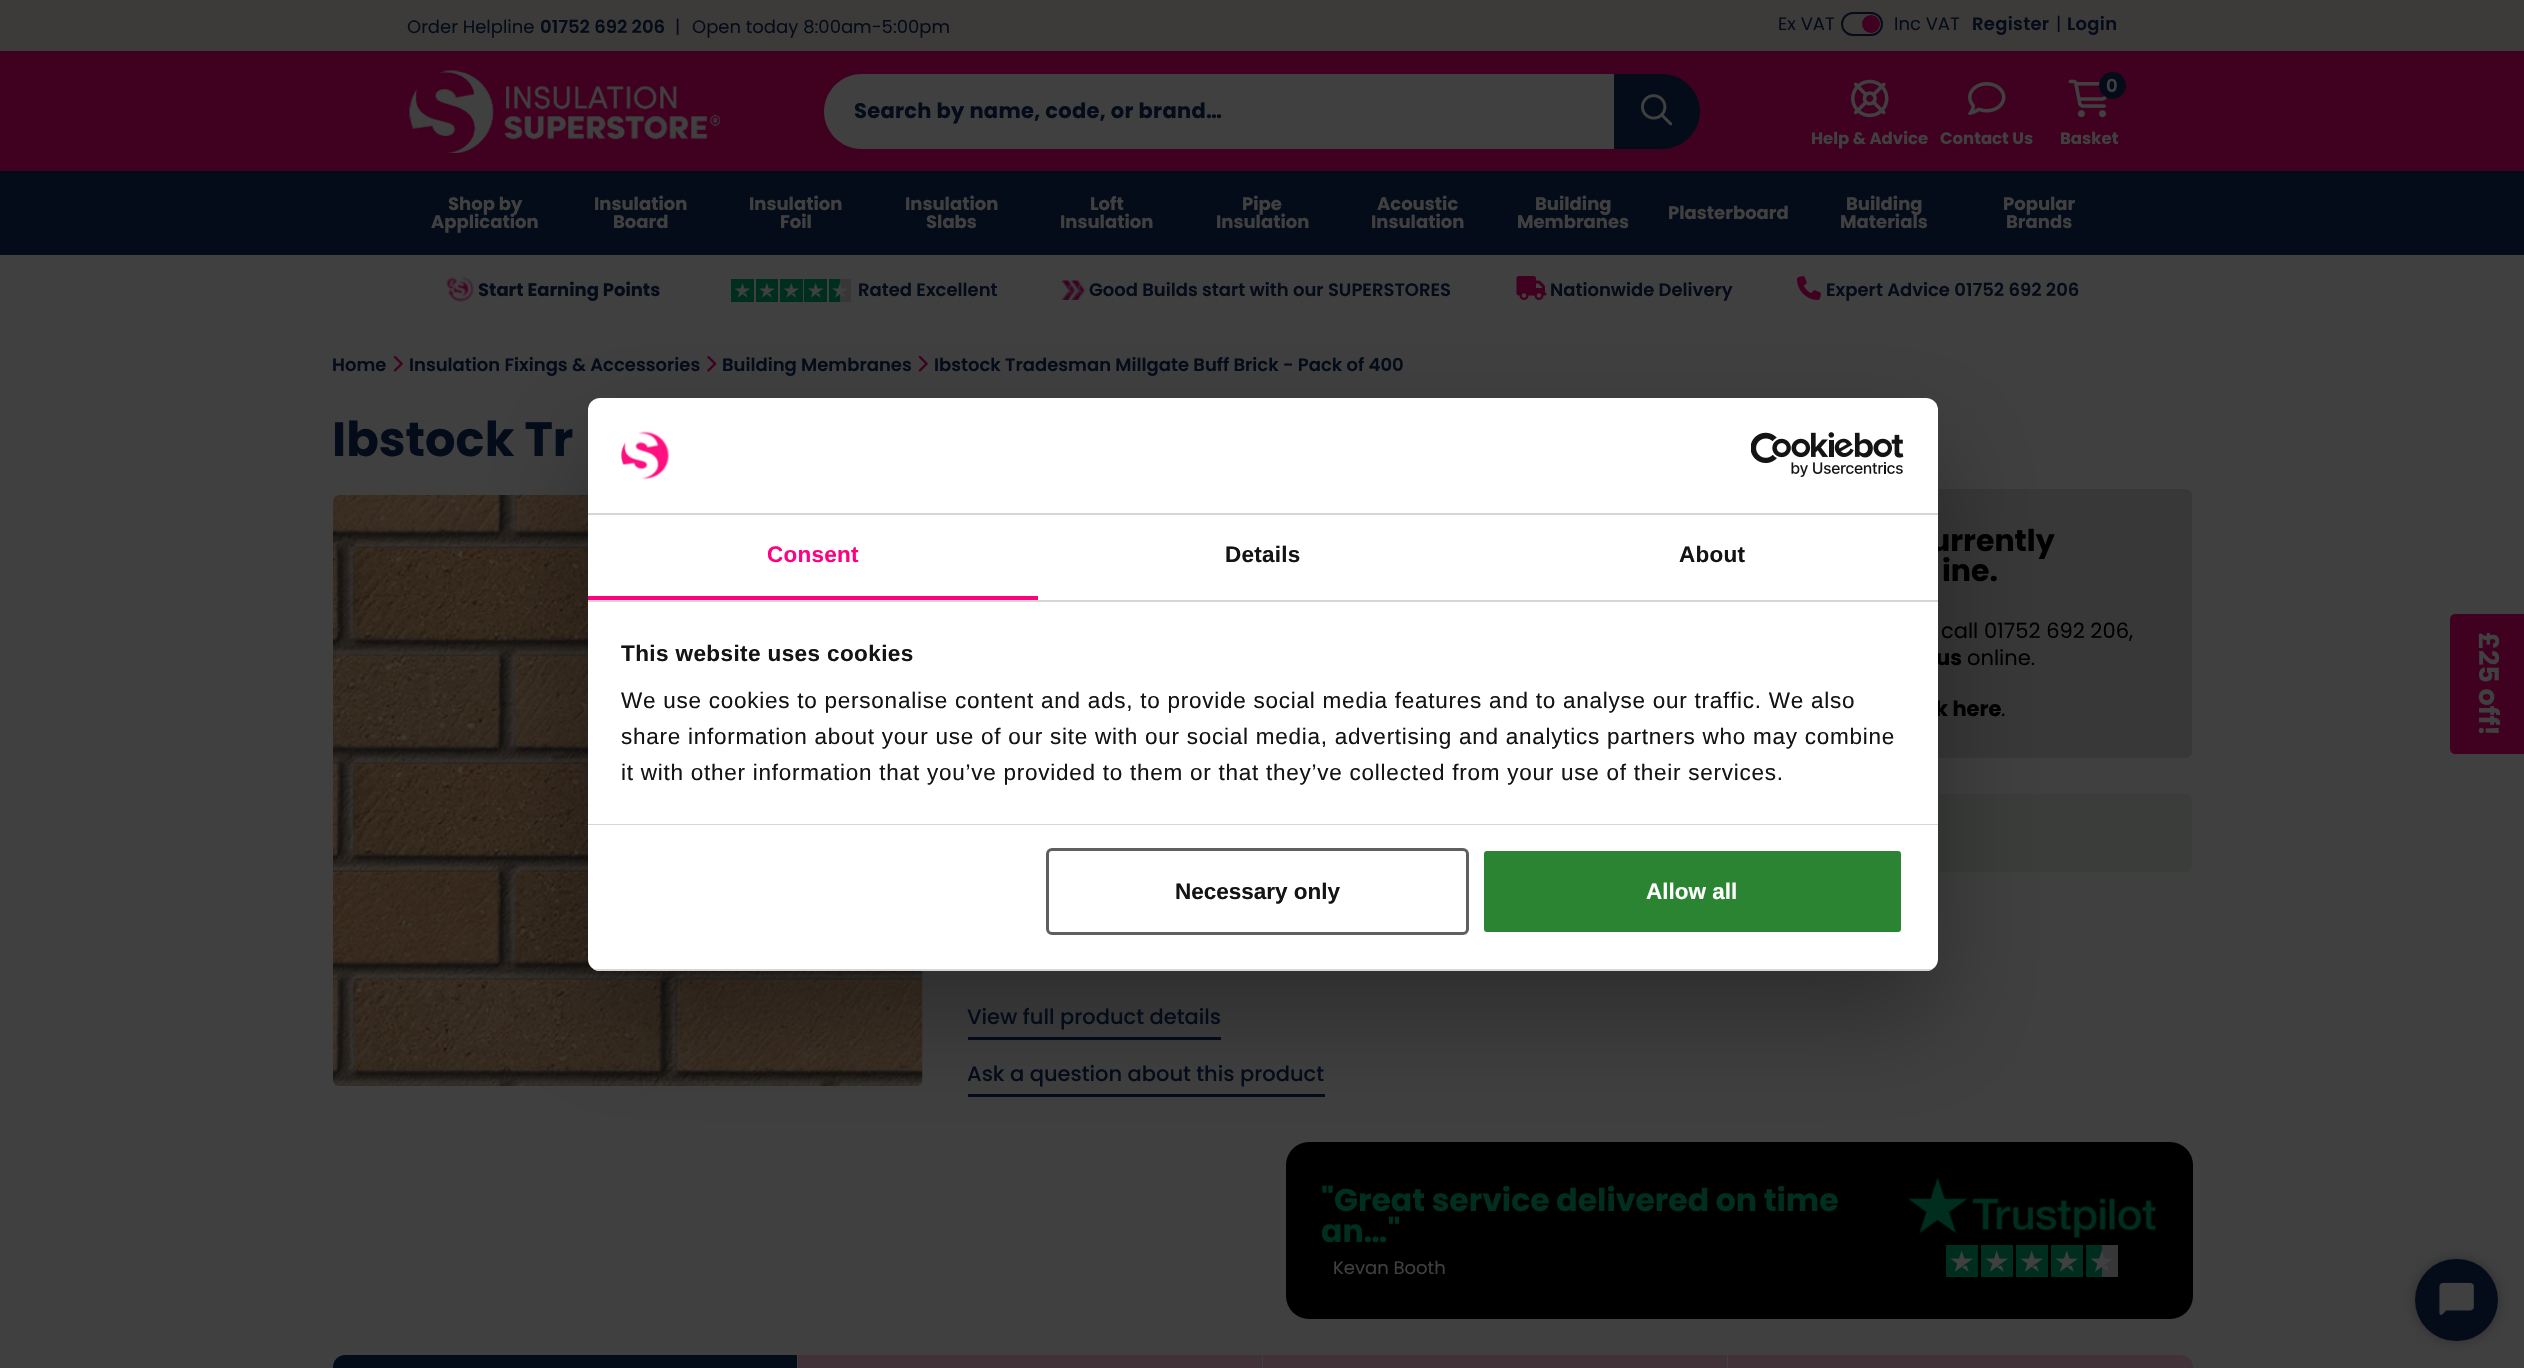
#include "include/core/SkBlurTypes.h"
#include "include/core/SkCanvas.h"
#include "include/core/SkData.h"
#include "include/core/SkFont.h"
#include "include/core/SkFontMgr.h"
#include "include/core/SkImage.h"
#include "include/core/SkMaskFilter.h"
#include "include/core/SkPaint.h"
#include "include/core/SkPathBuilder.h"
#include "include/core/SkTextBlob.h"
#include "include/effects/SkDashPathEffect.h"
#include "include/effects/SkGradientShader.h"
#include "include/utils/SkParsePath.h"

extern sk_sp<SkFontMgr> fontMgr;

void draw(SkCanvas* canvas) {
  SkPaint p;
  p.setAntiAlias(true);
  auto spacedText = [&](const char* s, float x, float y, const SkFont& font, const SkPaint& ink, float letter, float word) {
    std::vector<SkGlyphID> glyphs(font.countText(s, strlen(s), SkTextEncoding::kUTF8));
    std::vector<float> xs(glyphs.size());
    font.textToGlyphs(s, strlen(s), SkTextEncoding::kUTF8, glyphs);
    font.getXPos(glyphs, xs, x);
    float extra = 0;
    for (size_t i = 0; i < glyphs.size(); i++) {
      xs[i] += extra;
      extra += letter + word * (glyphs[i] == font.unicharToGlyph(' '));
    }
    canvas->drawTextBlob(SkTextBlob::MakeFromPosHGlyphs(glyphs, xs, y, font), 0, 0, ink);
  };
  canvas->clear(SkColorSetRGB(64, 64, 64));
  p.setColor(SkColorSetRGB(60, 59, 58));
  canvas->drawRect(SkRect::MakeLTRB(0, 0, 2524, 51), p);
  p.setStyle(SkPaint::kStroke_Style);
  p.setStrokeWidth(2);
  p.setColor(SkColorSetRGB(5, 12, 25));
  canvas->drawRoundRect(SkRect::MakeLTRB(1842, 13, 1882, 35), 11, 11, p);
  p.setStyle(SkPaint::kFill_Style);
  p.setColor(SkColorSetRGB(64, 0, 32));
  canvas->drawCircle(1871, 24, 9, p);
  canvas->drawRect(SkRect::MakeLTRB(0, 51, 2524, 171), p);
  canvas->drawImageRect(SkImages::DeferredFromEncodedData(SkData::MakeFromFileName("images/1.png")), SkRect::MakeLTRB(409, 70, 720, 153), SkSamplingOptions());
  p.setColor(SkColorSetRGB(64, 64, 64));
  canvas->drawPath(SkPathBuilder().moveTo(861.5f, 74).lineTo(1614, 74).lineTo(1614, 149).lineTo(861.5f, 149).cubicTo(841, 149, 824, 132, 824, 111.5f).cubicTo(824, 91, 841, 74, 861.5f, 74).close().detach(), p);
  p.setColor(SkColorSetRGB(5, 12, 25));
  canvas->drawPath(SkPathBuilder().moveTo(1614, 74).lineTo(1662.5f, 74).cubicTo(1683, 74, 1700, 91, 1700, 111.5f).cubicTo(1700, 132, 1683, 149, 1662.5f, 149).lineTo(1614, 149).close().detach(), p);
  canvas->drawImageRect(SkImages::DeferredFromEncodedData(SkData::MakeFromFileName("images/2.png")), SkRect::MakeLTRB(1641, 94, 1673, 126), SkSamplingOptions());
  canvas->drawImageRect(SkImages::DeferredFromEncodedData(SkData::MakeFromFileName("images/3.png")), SkRect::MakeLTRB(1851, 79, 1889, 118), SkSamplingOptions());
  canvas->drawImageRect(SkImages::DeferredFromEncodedData(SkData::MakeFromFileName("images/4.png")), SkRect::MakeLTRB(1968, 82, 2006, 115), SkSamplingOptions());
  canvas->drawImageRect(SkImages::DeferredFromEncodedData(SkData::MakeFromFileName("images/5.png")), SkRect::MakeLTRB(2068, 79, 2108, 118), SkSamplingOptions());
  canvas->drawCircle(2112.5f, 85.5f, 13.5f, p);
  canvas->drawRect(SkRect::MakeLTRB(0, 171, 2524, 255), p);
  canvas->drawImageRect(SkImages::DeferredFromEncodedData(SkData::MakeFromFileName("images/6.png")), SkRect::MakeLTRB(445, 277, 474, 302), SkSamplingOptions());
  canvas->drawImageRect(SkImages::DeferredFromEncodedData(SkData::MakeFromFileName("images/7.png")), SkRect::MakeLTRB(731, 279, 851, 302), SkSamplingOptions());
  canvas->drawImageRect(SkImages::DeferredFromEncodedData(SkData::MakeFromFileName("images/8.png")), SkRect::MakeLTRB(1062, 280, 1085, 300), SkSamplingOptions());
  canvas->drawImageRect(SkImages::DeferredFromEncodedData(SkData::MakeFromFileName("images/9.png")), SkRect::MakeLTRB(1516, 276, 1547, 300), SkSamplingOptions());
  canvas->drawImageRect(SkImages::DeferredFromEncodedData(SkData::MakeFromFileName("images/10.png")), SkRect::MakeLTRB(1797, 276, 1821, 300), SkSamplingOptions());
  canvas->drawImageRect(SkImages::DeferredFromEncodedData(SkData::MakeFromFileName("images/11.png")), SkRect::MakeLTRB(393, 355, 403, 372), SkSamplingOptions());
  canvas->drawImageRect(SkImages::DeferredFromEncodedData(SkData::MakeFromFileName("images/12.png")), SkRect::MakeLTRB(707, 355, 717, 372), SkSamplingOptions());
  canvas->drawImageRect(SkImages::DeferredFromEncodedData(SkData::MakeFromFileName("images/11.png")), SkRect::MakeLTRB(918, 355, 928, 372), SkSamplingOptions());
  canvas->drawImageRect(SkImages::DeferredFromEncodedData(SkData::MakeFromFileName("images/13.png")), SkRect::MakeLTRB(333, 495, 923, 1086), SkSamplingOptions());
  p.setColor(SkColorSetRGB(56, 56, 56));
  canvas->drawRoundRect(SkRect::MakeLTRB(1602, 489, 2192, 758), 6, 6, p);
  p.setColor(SkColorSetRGB(58, 61, 58));
  canvas->drawRoundRect(SkRect::MakeLTRB(1602, 794, 2192, 872), 6, 6, p);
  p.setColor(SkColorSetRGB(5, 12, 25));
  canvas->drawRect(SkRect::MakeLTRB(968, 1037, 1221, 1040), p);
  canvas->drawRect(SkRect::MakeLTRB(968, 1094, 1325, 1097), p);
  p.setColor(SK_ColorBLACK);
  canvas->drawRoundRect(SkRect::MakeLTRB(1286, 1142, 2193, 1319), 23, 23, p);
  canvas->drawImageRect(SkImages::DeferredFromEncodedData(SkData::MakeFromFileName("images/14.png")), SkRect::MakeLTRB(1908, 1177, 2156, 1238), SkSamplingOptions());
  canvas->drawImageRect(SkImages::DeferredFromEncodedData(SkData::MakeFromFileName("images/15.png")), SkRect::MakeLTRB(1946, 1245, 2118, 1277), SkSamplingOptions());
  p.setColor(SkColorSetRGB(5, 12, 25));
  canvas->drawPath(SkPathBuilder().moveTo(345, 1355).lineTo(797, 1355).lineTo(797, 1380).lineTo(333, 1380).lineTo(333, 1367).cubicTo(333, 1360.5f, 338.5f, 1355, 345, 1355).close().detach(), p);
  p.setColor(SkColorSetRGB(64, 50, 56));
  canvas->drawRect(SkRect::MakeLTRB(798, 1355, 1262, 1368), p);
  canvas->drawRect(SkRect::MakeLTRB(1263, 1355, 1727, 1368), p);
  canvas->drawPath(SkPathBuilder().moveTo(1728, 1355).lineTo(2181, 1355).cubicTo(2187.5f, 1355, 2193, 1360.5f, 2193, 1367).lineTo(2193, 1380).lineTo(1728, 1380).close().detach(), p);
  p.setColor(SkColorSetARGB(77, 0, 0, 0));
  p.setMaskFilter(SkMaskFilter::MakeBlur(kNormal_SkBlurStyle, 51));
  canvas->drawRoundRect(SkRect::MakeLTRB(588, 446, 1938, 1019), 12, 12, p);
  p.setMaskFilter(nullptr);
  p.setColor(SkColorSetRGB(64, 0, 32));
  canvas->drawPath(SkPathBuilder().moveTo(2524, 614).lineTo(2524, 754).lineTo(2456, 754).cubicTo(2452, 754, 2450, 752, 2450, 748).lineTo(2450, 620).cubicTo(2450, 616, 2452, 614, 2456, 614).close().detach(), p);
  p.setColor(SkColorSetARGB(77, 0, 0, 0));
  p.setMaskFilter(SkMaskFilter::MakeBlur(kNormal_SkBlurStyle, 6));
  canvas->drawRoundRect(SkRect::MakeLTRB(2415, 1259, 2498, 1341), 41, 41, p);
  p.setMaskFilter(nullptr);
  p.setColor(SkColorSetRGB(5, 12, 25));
  canvas->drawRoundRect(SkRect::MakeLTRB(2415, 1259, 2498, 1341), 41, 41, p);
  canvas->drawImageRect(SkImages::DeferredFromEncodedData(SkData::MakeFromFileName("images/18.png")), SkRect::MakeLTRB(2439, 1282, 2474, 1315), SkSamplingOptions());
  SkFont font1(fontMgr->matchFamilyStyle("Poppins", SkFontStyle::Normal()), 18);
  font1.setSubpixel(true);
  canvas->drawString("Order Helpline", 407, 33, font1, p);
  SkFont font2(fontMgr->matchFamilyStyle("Poppins", SkFontStyle(600, SkFontStyle::kNormal_Width, SkFontStyle::kUpright_Slant)), 18);
  font2.setSubpixel(true);
  canvas->drawString("01752 692 206", 540, 33, font2, p);
  canvas->drawString("|", 675, 33, font1, p);
  canvas->drawString("Open today 8:00am-5:00pm", 692, 33, font1, p);
  canvas->drawString("Ex VAT", 1778, 30, font1, p);
  canvas->drawString("Inc VAT", 1894, 30, font1, p);
  spacedText("Register", 1972, 30, font2, p, 0.3f, 0);
  canvas->drawString("|", 2056, 30, font1, p);
  spacedText("Login", 2067, 30, font2, p, 0.3f, 0);
  SkFont font3(fontMgr->matchFamilyStyle("Poppins", SkFontStyle::Bold()), 21);
  font3.setSubpixel(true);
  spacedText("Search by name, code, or brand…", 854, 118, font3, p, 0.3f, 0);
  SkFont font4(fontMgr->matchFamilyStyle("Poppins", SkFontStyle::Bold()), 16.5f);
  font4.setSubpixel(true);
  p.setColor(SkColorSetRGB(64, 64, 64));
  canvas->drawString("Help & Advice", 1811, 144, font4, p);
  canvas->drawString("Contact Us", 1940, 144, font4, p);
  canvas->drawString("0", 2106, 92, font2, p);
  canvas->drawString("Basket", 2060, 144, font4, p);
  SkFont font5(fontMgr->matchFamilyStyle("Poppins", SkFontStyle::Bold()), 18);
  font5.setSubpixel(true);
  canvas->drawString("Shop by", 448, 210, font5, p);
  canvas->drawString("Application", 431, 228, font5, p);
  canvas->drawString("Insulation", 594, 210, font5, p);
  canvas->drawString("Board", 613, 228, font5, p);
  canvas->drawString("Insulation", 749, 210, font5, p);
  canvas->drawString("Foil", 780, 228, font5, p);
  canvas->drawString("Insulation", 905, 210, font5, p);
  canvas->drawString("Slabs", 926, 228, font5, p);
  canvas->drawString("Loft", 1090, 210, font5, p);
  canvas->drawString("Insulation", 1060, 228, font5, p);
  canvas->drawString("Pipe", 1242, 210, font5, p);
  canvas->drawString("Insulation", 1216, 228, font5, p);
  canvas->drawString("Acoustic", 1377, 210, font5, p);
  canvas->drawString("Insulation", 1371, 228, font5, p);
  canvas->drawString("Building", 1535, 210, font5, p);
  canvas->drawString("Membranes", 1517, 228, font5, p);
  canvas->drawString("Plasterboard", 1668, 219, font5, p);
  canvas->drawString("Building", 1846, 210, font5, p);
  canvas->drawString("Materials", 1840, 228, font5, p);
  canvas->drawString("Popular", 2003, 210, font5, p);
  canvas->drawString("Brands", 2006, 228, font5, p);
  p.setColor(SkColorSetRGB(5, 12, 25));
  canvas->drawString("Start Earning Points", 478, 296, font5, p);
  canvas->drawString("Rated Excellent", 858, 296, font2, p);
  canvas->drawString("Good Builds start with our SUPERSTORES", 1089, 296, font2, p);
  canvas->drawString("Nationwide Delivery", 1550, 296, font2, p);
  canvas->drawString("Expert Advice 01752 692 206", 1826, 296, font2, p);
  canvas->drawString("Home", 332, 371, font2, p);
  canvas->drawString("Insulation Fixings & Accessories", 409, 371, font2, p);
  canvas->drawString("Building Membranes", 722, 371, font2, p);
  canvas->drawString("Ibstock Tradesman Millgate Buff Brick - Pack of 400", 934, 371, font2, p);
  SkFont font6(fontMgr->matchFamilyStyle("Poppins", SkFontStyle::Bold()), 48);
  font6.setSubpixel(true);
  canvas->drawString("Ibstock Tr", 332, 456, font6, p);
  SkFont font7(fontMgr->matchFamilyStyle("Poppins", SkFontStyle::Bold()), 30);
  font7.setSubpixel(true);
  p.setColor(SK_ColorBLACK);
  canvas->drawString("urrently", 1930, 551, font7, p);
  canvas->drawString("ine.", 1942, 581, font7, p);
  SkFont font8(fontMgr->matchFamilyStyle("Poppins", SkFontStyle::Normal()), 21);
  font8.setSubpixel(true);
  canvas->drawString("call 01752 692 206,", 1941, 638, font8, p);
  canvas->drawString("us", 1936, 665, font3, p);
  canvas->drawString("online.", 1967, 665, font8, p);
  canvas->drawString("k here", 1935, 716, font3, p);
  canvas->drawString(".", 2001, 716, font8, p);
  SkFont font9(fontMgr->matchFamilyStyle("Poppins", SkFontStyle(500, SkFontStyle::kNormal_Width, SkFontStyle::kUpright_Slant)), 21);
  font9.setSubpixel(true);
  p.setColor(SkColorSetRGB(5, 12, 25));
  canvas->drawString("View full product details", 967, 1024, font9, p);
  canvas->drawString("Ask a question about this product", 967, 1081, font9, p);
  SkFont font10(fontMgr->matchFamilyStyle("Poppins", SkFontStyle::Bold()), 31.5f);
  font10.setSubpixel(true);
  p.setColor(SkColorSetRGB(0, 46, 31));
  canvas->drawString("\"Great service delivered on time", 1321, 1211, font10, p);
  canvas->drawString("an…\"", 1321, 1242, font10, p);
  p.setColor(SkColorSetRGB(64, 64, 64));
  canvas->drawString("Kevan Booth", 1333, 1274, font1, p);
  p.setColor(SK_ColorWHITE);
  canvas->drawRoundRect(SkRect::MakeLTRB(588, 398, 1938, 971), 12, 12, p);
  p.setColor(SkColorSetRGB(214, 214, 214));
  canvas->drawRect(SkRect::MakeLTRB(588, 513, 1938, 515), p);
  canvas->drawImageRect(SkImages::DeferredFromEncodedData(SkData::MakeFromFileName("images/16.png")), SkRect::MakeLTRB(621, 431, 669, 480), SkSamplingOptions());
  canvas->drawImageRect(SkImages::DeferredFromEncodedData(SkData::MakeFromFileName("images/17.png")), SkRect::MakeLTRB(1751, 432, 1904, 477), SkSamplingOptions());
  canvas->drawRect(SkRect::MakeLTRB(588, 600, 1938, 602), p);
  p.setColor(SkColorSetRGB(255, 0, 128));
  canvas->drawRect(SkRect::MakeLTRB(588, 596, 1038, 600), p);
  SkFont font11(fontMgr->matchFamilyStyle("Liberation Sans", SkFontStyle::Bold()), 22.5f);
  font11.setSubpixel(true);
  spacedText("Consent", 767, 562, font11, p, 0.25f, 0);
  p.setColor(SkColorSetRGB(20, 20, 20));
  spacedText("Details", 1225, 562, font11, p, 0.25f, 0);
  spacedText("About", 1679, 562, font11, p, 0.25f, 0);
  p.setColor(SkColorSetRGB(214, 214, 214));
  canvas->drawRect(SkRect::MakeLTRB(588, 824, 1938, 825), p);
  p.setColor(SkColorSetRGB(20, 20, 20));
  spacedText("This website uses cookies", 621, 661, font11, p, 0.4f, 0);
  SkFont font12(fontMgr->matchFamilyStyle("Liberation Sans", SkFontStyle::Normal()), 22.5f);
  font12.setSubpixel(true);
  spacedText("We use cookies to personalise content and ads, to provide social media features and to analyse our traffic. We also", 621, 708, font12, p, 0.75f, 0);
  spacedText("share information about your use of our site with our social media, advertising and analytics partners who may combine", 621, 744, font12, p, 0.75f, 0);
  spacedText("it with other information that you’ve provided to them or that they’ve collected from your use of their services.", 621, 780, font12, p, 0.75f, 0);
  canvas->save();
  canvas->clipPath(SkPathBuilder().moveTo(600, 398).lineTo(1926, 398).cubicTo(1932.5f, 398, 1938, 403.5f, 1938, 410).lineTo(1938, 959).cubicTo(1938, 965.5f, 1932.5f, 971, 1926, 971).lineTo(600, 971).cubicTo(593.5f, 971, 588, 965.5f, 588, 959).lineTo(588, 410).cubicTo(588, 403.5f, 593.5f, 398, 600, 398).close().detach(), true);
  p.setColor(SkColorSetRGB(214, 214, 214));
  canvas->drawRect(SkRect::MakeLTRB(588, 969, 1938, 971), p);
  canvas->restore();
  p.setStyle(SkPaint::kStroke_Style);
  p.setStrokeWidth(3);
  p.setColor(SkColorSetRGB(95, 95, 95));
  canvas->drawRoundRect(SkRect::MakeLTRB(1047.5f, 849.5f, 1467.5f, 933.5f), 4.5f, 4.5f, p);
  p.setStyle(SkPaint::kFill_Style);
  p.setColor(SkColorSetRGB(20, 20, 20));
  canvas->drawString("Necessary only", 1175, 899, font11, p);
  p.setColor(SkColorSetRGB(42, 132, 49));
  canvas->drawRoundRect(SkRect::MakeLTRB(1482.5f, 849.5f, 1902.5f, 933.5f), 4.5f, 4.5f, p);
  p.setStyle(SkPaint::kStroke_Style);
  p.setColor(SK_ColorWHITE);
  canvas->drawRoundRect(SkRect::MakeLTRB(1482.5f, 849.5f, 1902.5f, 933.5f), 4.5f, 4.5f, p);
  p.setStyle(SkPaint::kFill_Style);
  canvas->drawString("Allow all", 1646, 899, font11, p);
  SkFont font13(fontMgr->matchFamilyStyle("Poppins", SkFontStyle::Bold()), 27);
  font13.setSubpixel(true);
  p.setColor(SkColorSetRGB(64, 64, 64));
  canvas->save();
  canvas->rotate(90, 2479, 632);
  canvas->drawString("£25 off!", 2479, 632, font13, p);
  canvas->restore();
}
